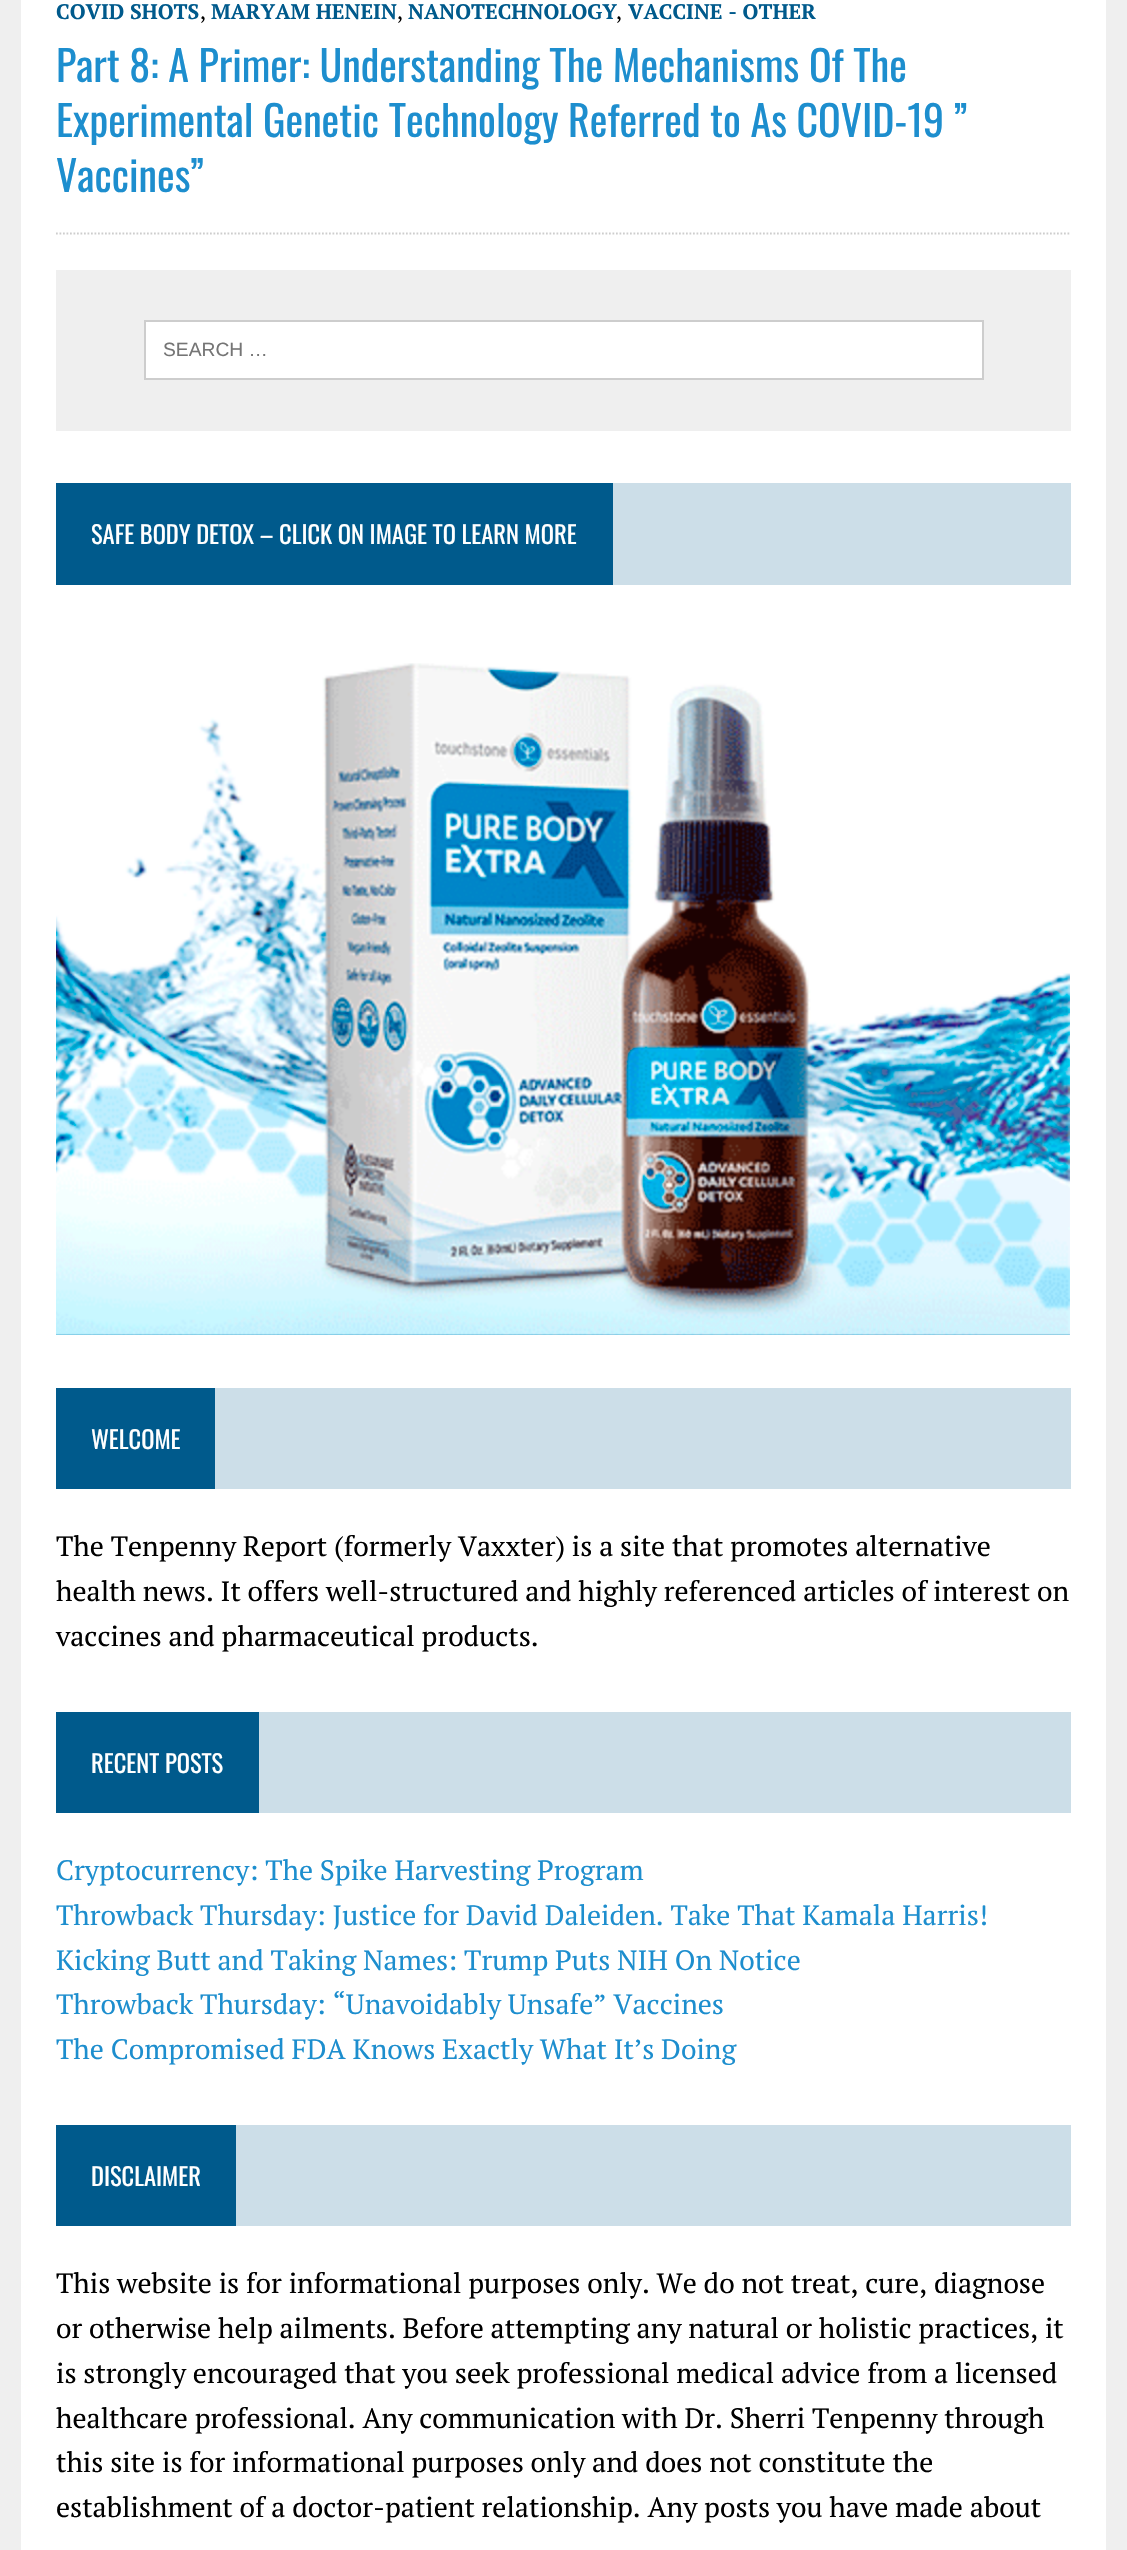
#include "include/core/SkBlurTypes.h"
#include "include/core/SkCanvas.h"
#include "include/core/SkData.h"
#include "include/core/SkFont.h"
#include "include/core/SkFontMgr.h"
#include "include/core/SkImage.h"
#include "include/core/SkMaskFilter.h"
#include "include/core/SkPaint.h"
#include "include/core/SkPathBuilder.h"
#include "include/core/SkTextBlob.h"
#include "include/effects/SkDashPathEffect.h"
#include "include/effects/SkGradientShader.h"
#include "include/utils/SkParsePath.h"

extern sk_sp<SkFontMgr> fontMgr;

void draw(SkCanvas* canvas) {
  SkPaint p;
  p.setAntiAlias(true);
  canvas->clear(SkColorSetRGB(239, 239, 239));
  p.setColor(SK_ColorWHITE);
  canvas->drawRect(SkRect::MakeLTRB(21, 0, 1106, 2550), p);
  p.setStyle(SkPaint::kStroke_Style);
  p.setStrokeWidth(1.8f);
  p.setColor(SkColorSetRGB(205, 205, 205));
  p.setPathEffect(SkDashPathEffect::Make({{1.75f, 1.75f}}, 0));
  canvas->drawPath(SkPathBuilder().moveTo(56, 233.5f).lineTo(1071, 233.5f).detach(), p);
  p.setPathEffect(nullptr);
  p.setStyle(SkPaint::kFill_Style);
  p.setColor(SkColorSetRGB(239, 239, 239));
  canvas->drawRect(SkRect::MakeLTRB(56, 270, 1071, 431), p);
  p.setColor(SK_ColorWHITE);
  canvas->drawRect(SkRect::MakeLTRB(145, 321, 983, 379), p);
  p.setStyle(SkPaint::kStroke_Style);
  p.setStrokeWidth(2);
  p.setColor(SkColorSetRGB(205, 205, 205));
  canvas->drawRect(SkRect::MakeLTRB(145, 321, 983, 379), p);
  p.setStyle(SkPaint::kFill_Style);
  p.setColor(SkColorSetRGB(204, 222, 232));
  canvas->drawRect(SkRect::MakeLTRB(613, 483, 1071, 585), p);
  p.setColor(SkColorSetRGB(0, 90, 140));
  canvas->drawRect(SkRect::MakeLTRB(56, 483, 613, 585), p);
  canvas->drawImageRect(SkImages::DeferredFromEncodedData(SkData::MakeFromFileName("images/1.png")), SkRect::MakeLTRB(56, 663, 1070, 1335), SkSamplingOptions());
  p.setColor(SkColorSetRGB(204, 222, 232));
  canvas->drawRect(SkRect::MakeLTRB(215, 1388, 1071, 1489), p);
  p.setColor(SkColorSetRGB(0, 90, 140));
  canvas->drawRect(SkRect::MakeLTRB(56, 1388, 215, 1489), p);
  p.setColor(SkColorSetRGB(204, 222, 232));
  canvas->drawRect(SkRect::MakeLTRB(259, 1712, 1071, 1813), p);
  p.setColor(SkColorSetRGB(0, 90, 140));
  canvas->drawRect(SkRect::MakeLTRB(56, 1712, 259, 1813), p);
  p.setColor(SkColorSetRGB(204, 222, 232));
  canvas->drawRect(SkRect::MakeLTRB(236, 2125, 1071, 2226), p);
  p.setColor(SkColorSetRGB(0, 90, 140));
  canvas->drawRect(SkRect::MakeLTRB(56, 2125, 236, 2226), p);
  SkFont font1(fontMgr->matchFamilyStyle("PT Serif", SkFontStyle::Bold()), 21);
  font1.setSubpixel(true);
  canvas->drawString("COVID SHOTS", 56, 19, font1, p);
  SkFont font2(fontMgr->matchFamilyStyle("PT Serif", SkFontStyle::Normal()), 21);
  font2.setSubpixel(true);
  p.setColor(SK_ColorBLACK);
  canvas->drawString(",", 200, 19, font2, p);
  p.setColor(SkColorSetRGB(0, 90, 140));
  canvas->drawString("MARYAM HENEIN", 211, 19, font1, p);
  p.setColor(SK_ColorBLACK);
  canvas->drawString(",", 397, 19, font2, p);
  p.setColor(SkColorSetRGB(0, 90, 140));
  canvas->drawString("NANOTECHNOLOGY", 408, 19, font1, p);
  p.setColor(SK_ColorBLACK);
  canvas->drawString(",", 616, 19, font2, p);
  p.setColor(SkColorSetRGB(0, 90, 140));
  canvas->drawString("VACCINE - OTHER", 628, 19, font1, p);
  SkFont font3(fontMgr->matchFamilyStyle("Oswald", SkFontStyle::Normal()), 42);
  font3.setSubpixel(true);
  p.setColor(SkColorSetRGB(29, 142, 206));
  canvas->drawString("Part 8: A Primer: Understanding The Mechanisms Of The", 56, 82, font3, p);
  canvas->drawString("Experimental Genetic Technology Referred to As COVID-19 ”", 56, 137, font3, p);
  canvas->drawString("Vaccines”", 56, 192, font3, p);
  SkFont font4(fontMgr->matchFamilyStyle("Liberation Sans", SkFontStyle::Normal()), 19.25f);
  font4.setSubpixel(true);
  p.setColor(SkColorSetRGB(117, 117, 117));
  canvas->drawString("SEARCH …", 163, 356, font4, p);
  SkFont font5(fontMgr->matchFamilyStyle("Oswald", SkFontStyle::Normal()), 24.5f);
  font5.setSubpixel(true);
  p.setColor(SK_ColorWHITE);
  canvas->drawString("SAFE BODY DETOX – CLICK ON IMAGE TO LEARN MORE", 91, 544, font5, p);
  canvas->drawString("WELCOME", 91, 1449, font5, p);
  SkFont font6(fontMgr->matchFamilyStyle("PT Serif", SkFontStyle::Normal()), 28);
  font6.setSubpixel(true);
  p.setColor(SK_ColorBLACK);
  canvas->drawString("The Tenpenny Report (formerly Vaxxter) is a site that promotes alternative", 56, 1556, font6, p);
  canvas->drawString("health news. It offers well-structured and highly referenced articles of interest on", 56, 1601, font6, p);
  canvas->drawString("vaccines and pharmaceutical products.", 56, 1646, font6, p);
  p.setColor(SK_ColorWHITE);
  canvas->drawString("RECENT POSTS", 91, 1773, font5, p);
  p.setColor(SkColorSetRGB(29, 142, 206));
  canvas->drawString("Cryptocurrency: The Spike Harvesting Program", 56, 1880, font6, p);
  canvas->drawString("Throwback Thursday: Justice for David Daleiden. Take That Kamala Harris!", 56, 1925, font6, p);
  canvas->drawString("Kicking Butt and Taking Names: Trump Puts NIH On Notice", 56, 1970, font6, p);
  canvas->drawString("Throwback Thursday: “Unavoidably Unsafe” Vaccines", 56, 2014, font6, p);
  canvas->drawString("The Compromised FDA Knows Exactly What It’s Doing", 56, 2059, font6, p);
  p.setColor(SK_ColorWHITE);
  canvas->drawString("DISCLAIMER", 91, 2186, font5, p);
  p.setColor(SK_ColorBLACK);
  canvas->drawString("This website is for informational purposes only. We do not treat, cure, diagnose", 56, 2293, font6, p);
  canvas->drawString("or otherwise help ailments. Before attempting any natural or holistic practices, it", 56, 2338, font6, p);
  canvas->drawString("is strongly encouraged that you seek professional medical advice from a licensed", 56, 2383, font6, p);
  canvas->drawString("healthcare professional. Any communication with Dr. Sherri Tenpenny through", 56, 2428, font6, p);
  canvas->drawString("this site is for informational purposes only and does not constitute the", 56, 2472, font6, p);
  canvas->drawString("establishment of a doctor-patient relationship. Any posts you have made about", 56, 2517, font6, p);
}
